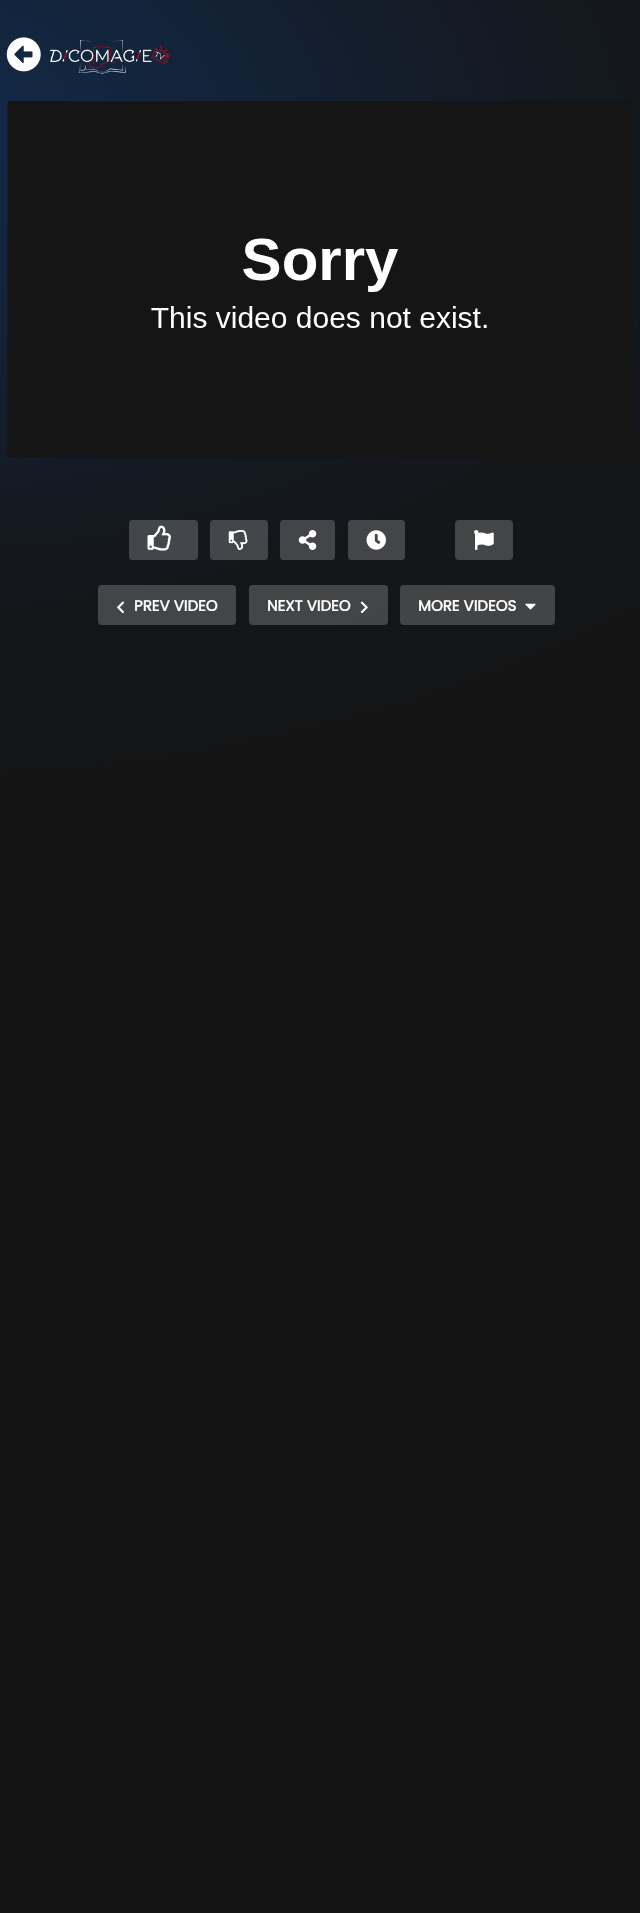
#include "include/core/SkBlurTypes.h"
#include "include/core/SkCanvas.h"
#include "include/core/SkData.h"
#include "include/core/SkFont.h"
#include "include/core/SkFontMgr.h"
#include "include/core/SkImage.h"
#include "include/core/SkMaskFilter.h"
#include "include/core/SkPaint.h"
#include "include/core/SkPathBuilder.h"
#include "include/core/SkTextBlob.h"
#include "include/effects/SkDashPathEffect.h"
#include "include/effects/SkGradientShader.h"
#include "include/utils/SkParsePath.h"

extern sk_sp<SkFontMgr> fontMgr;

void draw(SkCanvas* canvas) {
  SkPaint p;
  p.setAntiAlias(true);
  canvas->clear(SK_ColorWHITE);
  canvas->drawImageRect(SkImages::DeferredFromEncodedData(SkData::MakeFromFileName("images/1.png")), SkRect::MakeLTRB(0, 0, 640, 1913), SkSamplingOptions());
  canvas->drawImageRect(SkImages::DeferredFromEncodedData(SkData::MakeFromFileName("images/2.png")), SkRect::MakeLTRB(6, 37, 41, 72), SkSamplingOptions());
  canvas->drawImageRect(SkImages::DeferredFromEncodedData(SkData::MakeFromFileName("images/3.png")), SkRect::MakeLTRB(50, 40, 170, 74), SkSamplingOptions());
  canvas->drawImageRect(SkImages::DeferredFromEncodedData(SkData::MakeFromFileName("images/4.png")), SkRect::MakeLTRB(7, 101, 633, 458), SkSamplingOptions());
  p.setColor(SkColorSetARGB(51, 255, 255, 255));
  canvas->drawRoundRect(SkRect::MakeLTRB(129, 520, 198, 560), 4, 4, p);
  canvas->drawImageRect(SkImages::DeferredFromEncodedData(SkData::MakeFromFileName("images/5.png")), SkRect::MakeLTRB(147, 525, 171, 551), SkSamplingOptions());
  canvas->drawRoundRect(SkRect::MakeLTRB(210, 520, 268, 560), 4, 4, p);
  canvas->drawImageRect(SkImages::DeferredFromEncodedData(SkData::MakeFromFileName("images/6.png")), SkRect::MakeLTRB(228, 530, 248, 550), SkSamplingOptions());
  p.setColor(SkColorSetRGB(67, 69, 72));
  canvas->drawRoundRect(SkRect::MakeLTRB(280, 520, 335, 560), 4, 4, p);
  canvas->drawImageRect(SkImages::DeferredFromEncodedData(SkData::MakeFromFileName("images/7.png")), SkRect::MakeLTRB(298, 530, 317, 550), SkSamplingOptions());
  canvas->drawRoundRect(SkRect::MakeLTRB(348, 520, 405, 560), 4, 4, p);
  canvas->drawImageRect(SkImages::DeferredFromEncodedData(SkData::MakeFromFileName("images/8.png")), SkRect::MakeLTRB(366, 530, 386, 550), SkSamplingOptions());
  p.setColor(SkColorSetRGB(67, 69, 70));
  canvas->drawRoundRect(SkRect::MakeLTRB(455, 520, 513, 560), 4, 4, p);
  canvas->drawImageRect(SkImages::DeferredFromEncodedData(SkData::MakeFromFileName("images/9.png")), SkRect::MakeLTRB(474, 530, 494, 550), SkSamplingOptions());
  p.setColor(SkColorSetARGB(51, 255, 255, 255));
  canvas->drawRoundRect(SkRect::MakeLTRB(98, 585, 236, 625), 4, 4, p);
  canvas->drawImageRect(SkImages::DeferredFromEncodedData(SkData::MakeFromFileName("images/10.png")), SkRect::MakeLTRB(117, 601, 125, 614), SkSamplingOptions());
  canvas->drawRoundRect(SkRect::MakeLTRB(249, 585, 388, 625), 4, 4, p);
  canvas->drawImageRect(SkImages::DeferredFromEncodedData(SkData::MakeFromFileName("images/11.png")), SkRect::MakeLTRB(360, 601, 368, 614), SkSamplingOptions());
  p.setColor(SkColorSetRGB(67, 68, 69));
  canvas->drawRoundRect(SkRect::MakeLTRB(400, 585, 555, 625), 4, 4, p);
  canvas->drawImageRect(SkImages::DeferredFromEncodedData(SkData::MakeFromFileName("images/12.png")), SkRect::MakeLTRB(525, 603, 536, 610), SkSamplingOptions());
  SkFont font1(fontMgr->matchFamilyStyle("Poppins", SkFontStyle::Bold()), 15);
  font1.setSubpixel(true);
  p.setColor(SK_ColorWHITE);
  canvas->drawString("PREV VIDEO", 134, 611, font1, p);
  canvas->drawString("NEXT VIDEO", 267, 611, font1, p);
  canvas->drawString("MORE VIDEOS", 418, 611, font1, p);
}
